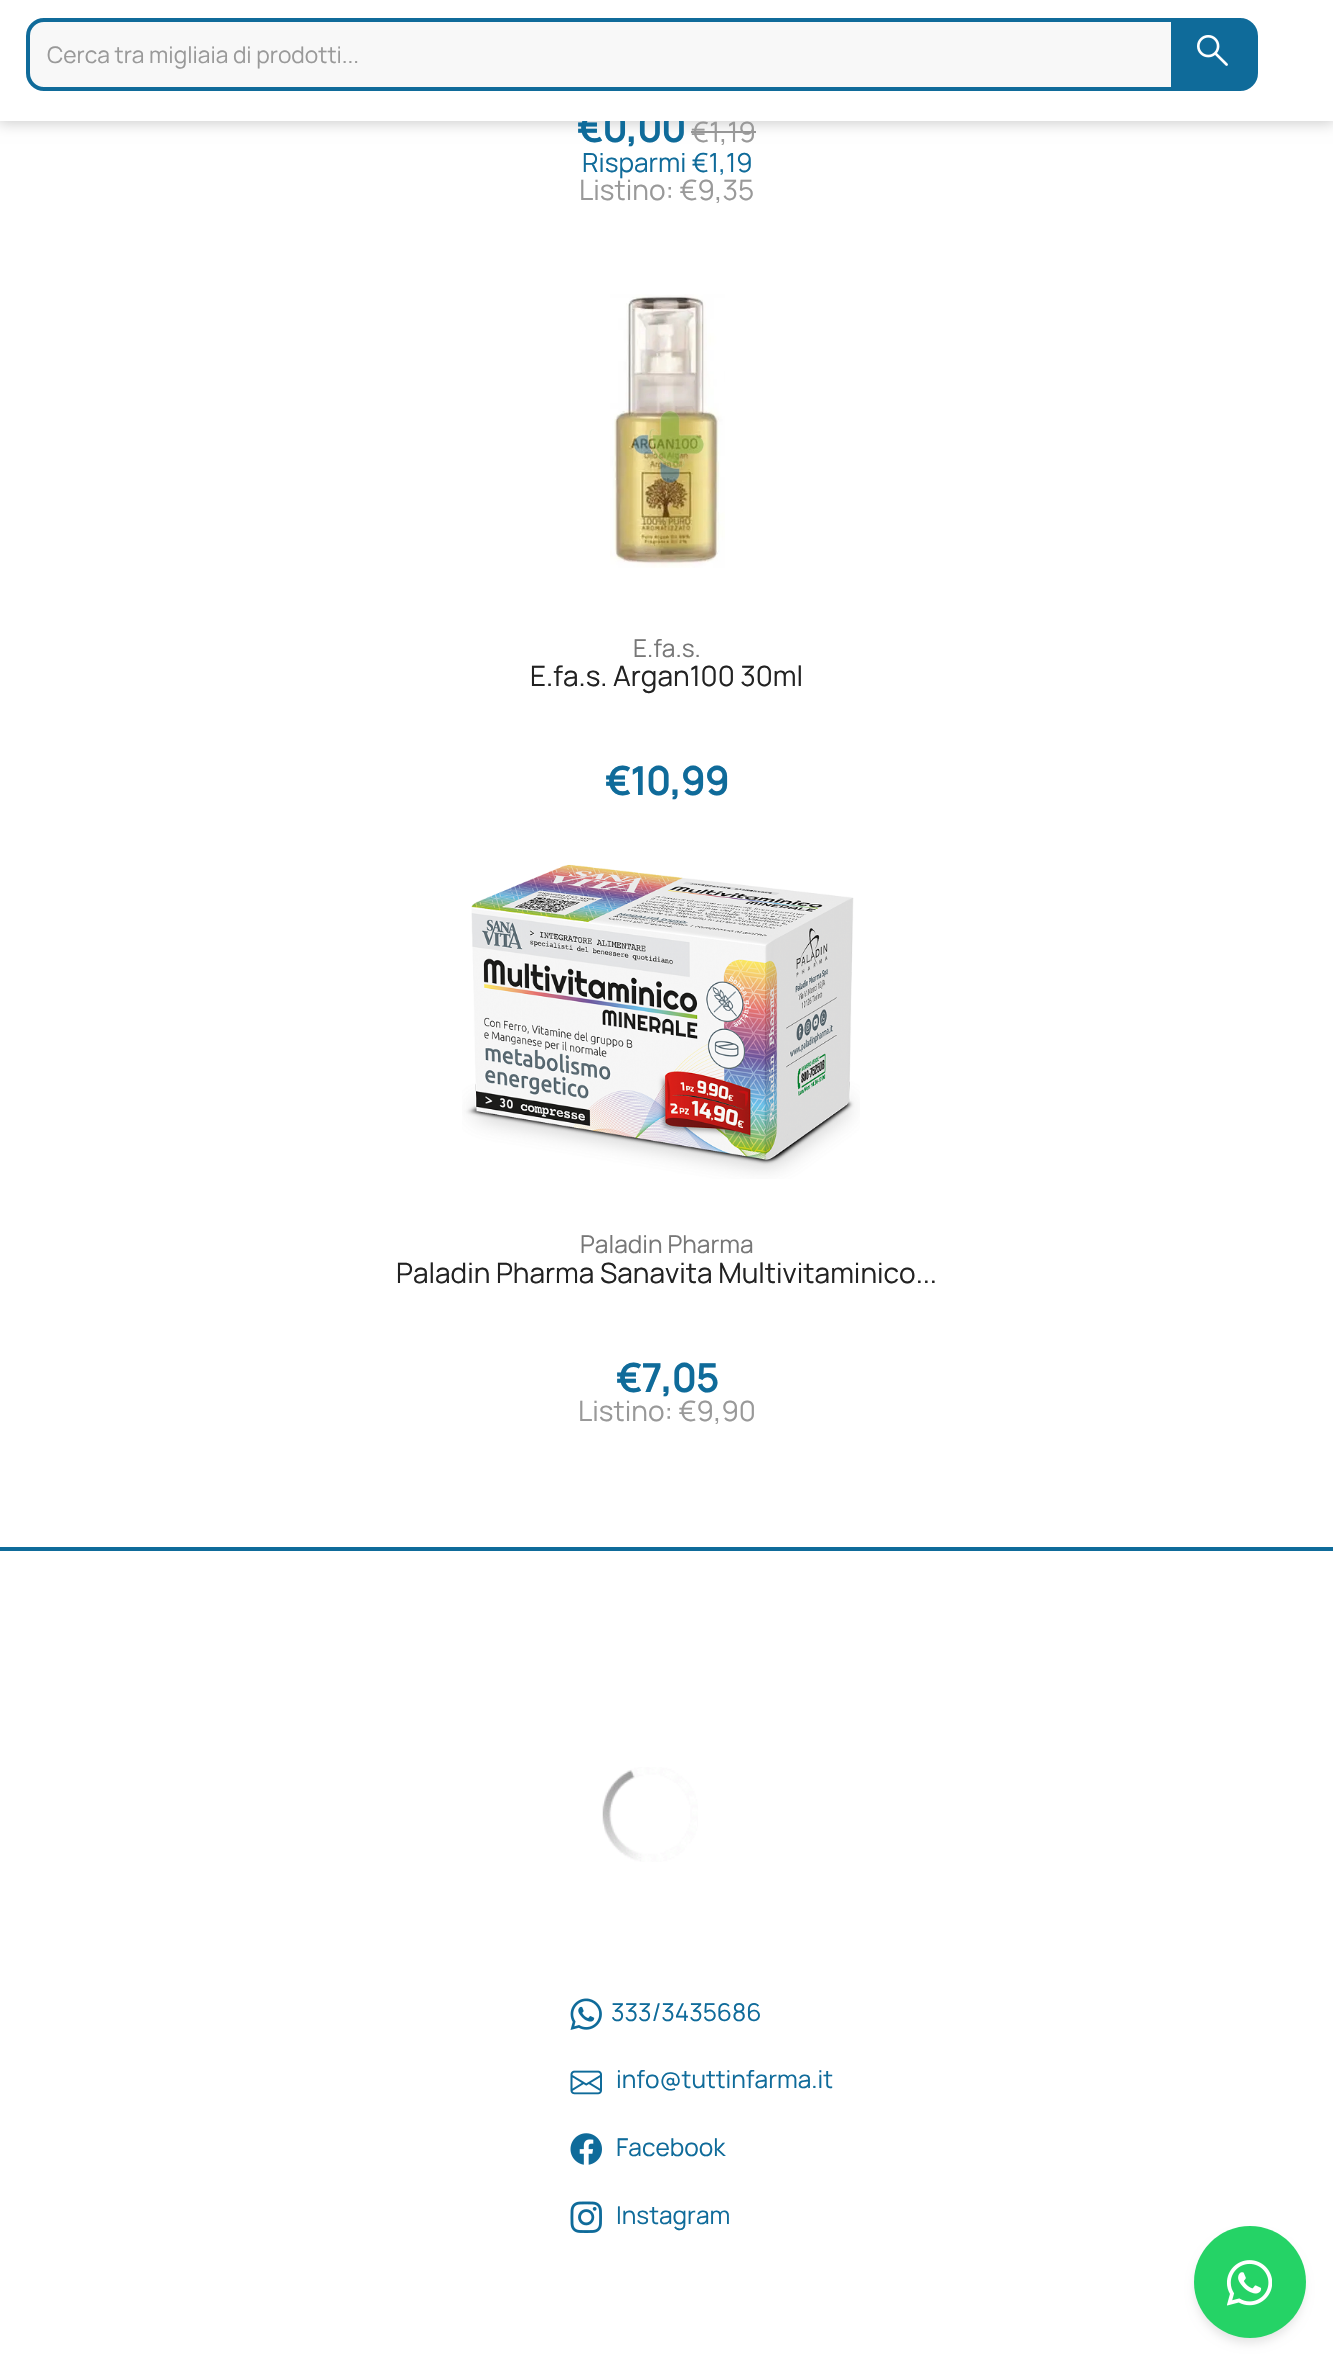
#include "include/core/SkBlurTypes.h"
#include "include/core/SkCanvas.h"
#include "include/core/SkData.h"
#include "include/core/SkFont.h"
#include "include/core/SkFontMgr.h"
#include "include/core/SkImage.h"
#include "include/core/SkMaskFilter.h"
#include "include/core/SkPaint.h"
#include "include/core/SkPathBuilder.h"
#include "include/core/SkTextBlob.h"
#include "include/effects/SkDashPathEffect.h"
#include "include/effects/SkGradientShader.h"
#include "include/utils/SkParsePath.h"

extern sk_sp<SkFontMgr> fontMgr;

void draw(SkCanvas* canvas) {
  SkPaint p;
  p.setAntiAlias(true);
  canvas->clear(SK_ColorWHITE);
  p.setColor(SkColorSetRGB(153, 153, 153));
  canvas->drawRect(SkRect::MakeLTRB(691, 131, 756, 133), p);
  p.setColor(SkColorSetARGB(51, 0, 0, 0));
  p.setMaskFilter(SkMaskFilter::MakeBlur(kNormal_SkBlurStyle, 7));
  canvas->drawRect(SkRect::MakeLTRB(-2, -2, 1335, 123), p);
  p.setMaskFilter(nullptr);
  canvas->drawImageRect(SkImages::DeferredFromEncodedData(SkData::MakeFromFileName("images/2.png")), SkRect::MakeLTRB(610, 294, 725, 568), SkSamplingOptions());
  canvas->drawImageRect(SkImages::DeferredFromEncodedData(SkData::MakeFromFileName("images/3.png")), SkRect::MakeLTRB(462, 864, 860, 1179), SkSamplingOptions());
  p.setColor(SkColorSetRGB(15, 107, 154));
  canvas->drawRect(SkRect::MakeLTRB(0, 1547, 1333, 1551), p);
  canvas->drawImageRect(SkImages::DeferredFromEncodedData(SkData::MakeFromFileName("images/4.png")), SkRect::MakeLTRB(602, 1767, 698, 1862), SkSamplingOptions());
  canvas->drawImageRect(SkImages::DeferredFromEncodedData(SkData::MakeFromFileName("images/5.png")), SkRect::MakeLTRB(570, 1998, 602, 2030), SkSamplingOptions());
  canvas->drawImageRect(SkImages::DeferredFromEncodedData(SkData::MakeFromFileName("images/6.png")), SkRect::MakeLTRB(570, 2070, 602, 2095), SkSamplingOptions());
  canvas->drawImageRect(SkImages::DeferredFromEncodedData(SkData::MakeFromFileName("images/7.png")), SkRect::MakeLTRB(570, 2133, 602, 2165), SkSamplingOptions());
  canvas->drawImageRect(SkImages::DeferredFromEncodedData(SkData::MakeFromFileName("images/8.png")), SkRect::MakeLTRB(570, 2201, 602, 2233), SkSamplingOptions());
  p.setColor(SkColorSetARGB(26, 0, 0, 0));
  p.setMaskFilter(SkMaskFilter::MakeBlur(kNormal_SkBlurStyle, 5));
  canvas->drawRoundRect(SkRect::MakeLTRB(1195, 2235, 1304, 2343), 54, 54, p);
  p.setMaskFilter(nullptr);
  p.setColor(SkColorSetRGB(37, 211, 102));
  canvas->drawCircle(1250, 2282, 56, p);
  canvas->drawImageRect(SkImages::DeferredFromEncodedData(SkData::MakeFromFileName("images/9.png")), SkRect::MakeLTRB(1227, 2260, 1272, 2306), SkSamplingOptions());
  SkFont font1(fontMgr->matchFamilyStyle("Manrope", SkFontStyle::Bold()), 38.5f);
  font1.setSubpixel(true);
  p.setColor(SkColorSetRGB(15, 107, 154));
  canvas->drawString("€0,00", 577, 142, font1, p);
  p.setColor(SK_ColorWHITE);
  canvas->drawRect(SkRect::MakeLTRB(0, 0, 1333, 121), p);
  p.setColor(SkColorSetRGB(248, 248, 248));
  canvas->drawRoundRect(SkRect::MakeLTRB(28, 20, 1221, 89), 16, 16, p);
  p.setStyle(SkPaint::kStroke_Style);
  p.setStrokeWidth(4);
  p.setColor(SkColorSetRGB(16, 107, 154));
  canvas->drawRoundRect(SkRect::MakeLTRB(28, 20, 1221, 89), 16, 16, p);
  p.setStyle(SkPaint::kFill_Style);
  p.setColor(SkColorSetRGB(15, 107, 154));
  canvas->drawPath(SkPathBuilder().moveTo(1173, 20).lineTo(1240, 20).cubicTo(1249, 20, 1256, 27, 1256, 36).lineTo(1256, 73).cubicTo(1256, 82, 1249, 89, 1240, 89).lineTo(1173, 89).close().detach(), p);
  p.setStyle(SkPaint::kStroke_Style);
  canvas->drawPath(SkPathBuilder().moveTo(1173, 20).lineTo(1240, 20).cubicTo(1249, 20, 1256, 27, 1256, 36).lineTo(1256, 73).cubicTo(1256, 82, 1249, 89, 1240, 89).lineTo(1173, 89).close().detach(), p);
  canvas->drawImageRect(SkImages::DeferredFromEncodedData(SkData::MakeFromFileName("images/1.png")), SkRect::MakeLTRB(1197, 35, 1228, 66), SkSamplingOptions());
  SkFont font2(fontMgr->matchFamilyStyle("Manrope", SkFontStyle::Normal()), 22.75f);
  font2.setSubpixel(true);
  p.setStyle(SkPaint::kFill_Style);
  p.setColor(SkColorSetRGB(153, 153, 153));
  canvas->drawString("Cerca tra migliaia di prodotti...", 47, 63, font2, p);
  SkFont font3(fontMgr->matchFamilyStyle("Manrope", SkFontStyle::Normal()), 28);
  font3.setSubpixel(true);
  canvas->drawString("€1,19", 691, 142, font3, p);
  SkFont font4(fontMgr->matchFamilyStyle("Manrope", SkFontStyle::Normal()), 26.25f);
  font4.setSubpixel(true);
  p.setColor(SkColorSetRGB(15, 107, 154));
  canvas->drawString("Risparmi €1,19", 582, 172, font4, p);
  p.setColor(SkColorSetRGB(153, 153, 153));
  canvas->drawString("Listino: €9,35", 579, 200, font3, p);
  SkFont font5(fontMgr->matchFamilyStyle("Manrope", SkFontStyle::Normal()), 24.5f);
  font5.setSubpixel(true);
  p.setColor(SkColorSetRGB(119, 119, 119));
  canvas->drawString("E.fa.s.", 633, 657, font5, p);
  p.setColor(SkColorSetRGB(34, 34, 34));
  canvas->drawString("E.fa.s. Argan100 30ml", 530, 686, font3, p);
  p.setColor(SkColorSetRGB(15, 107, 154));
  canvas->drawString("€10,99", 605, 795, font1, p);
  p.setColor(SkColorSetRGB(119, 119, 119));
  canvas->drawString("Paladin Pharma", 580, 1253, font5, p);
  p.setColor(SkColorSetRGB(34, 34, 34));
  canvas->drawString("Paladin Pharma Sanavita Multivitaminico...", 396, 1283, font3, p);
  p.setColor(SkColorSetRGB(15, 107, 154));
  canvas->drawString("€7,05", 616, 1392, font1, p);
  p.setColor(SkColorSetRGB(153, 153, 153));
  canvas->drawString("Listino: €9,90", 578, 1421, font3, p);
  p.setColor(SkColorSetRGB(15, 107, 154));
  canvas->drawString("333/3435686", 611, 2021, font5, p);
  canvas->drawString("info@tuttinfarma.it", 616, 2088, font5, p);
  canvas->drawString("Facebook", 616, 2156, font5, p);
  canvas->drawString("Instagram", 616, 2224, font5, p);
}
